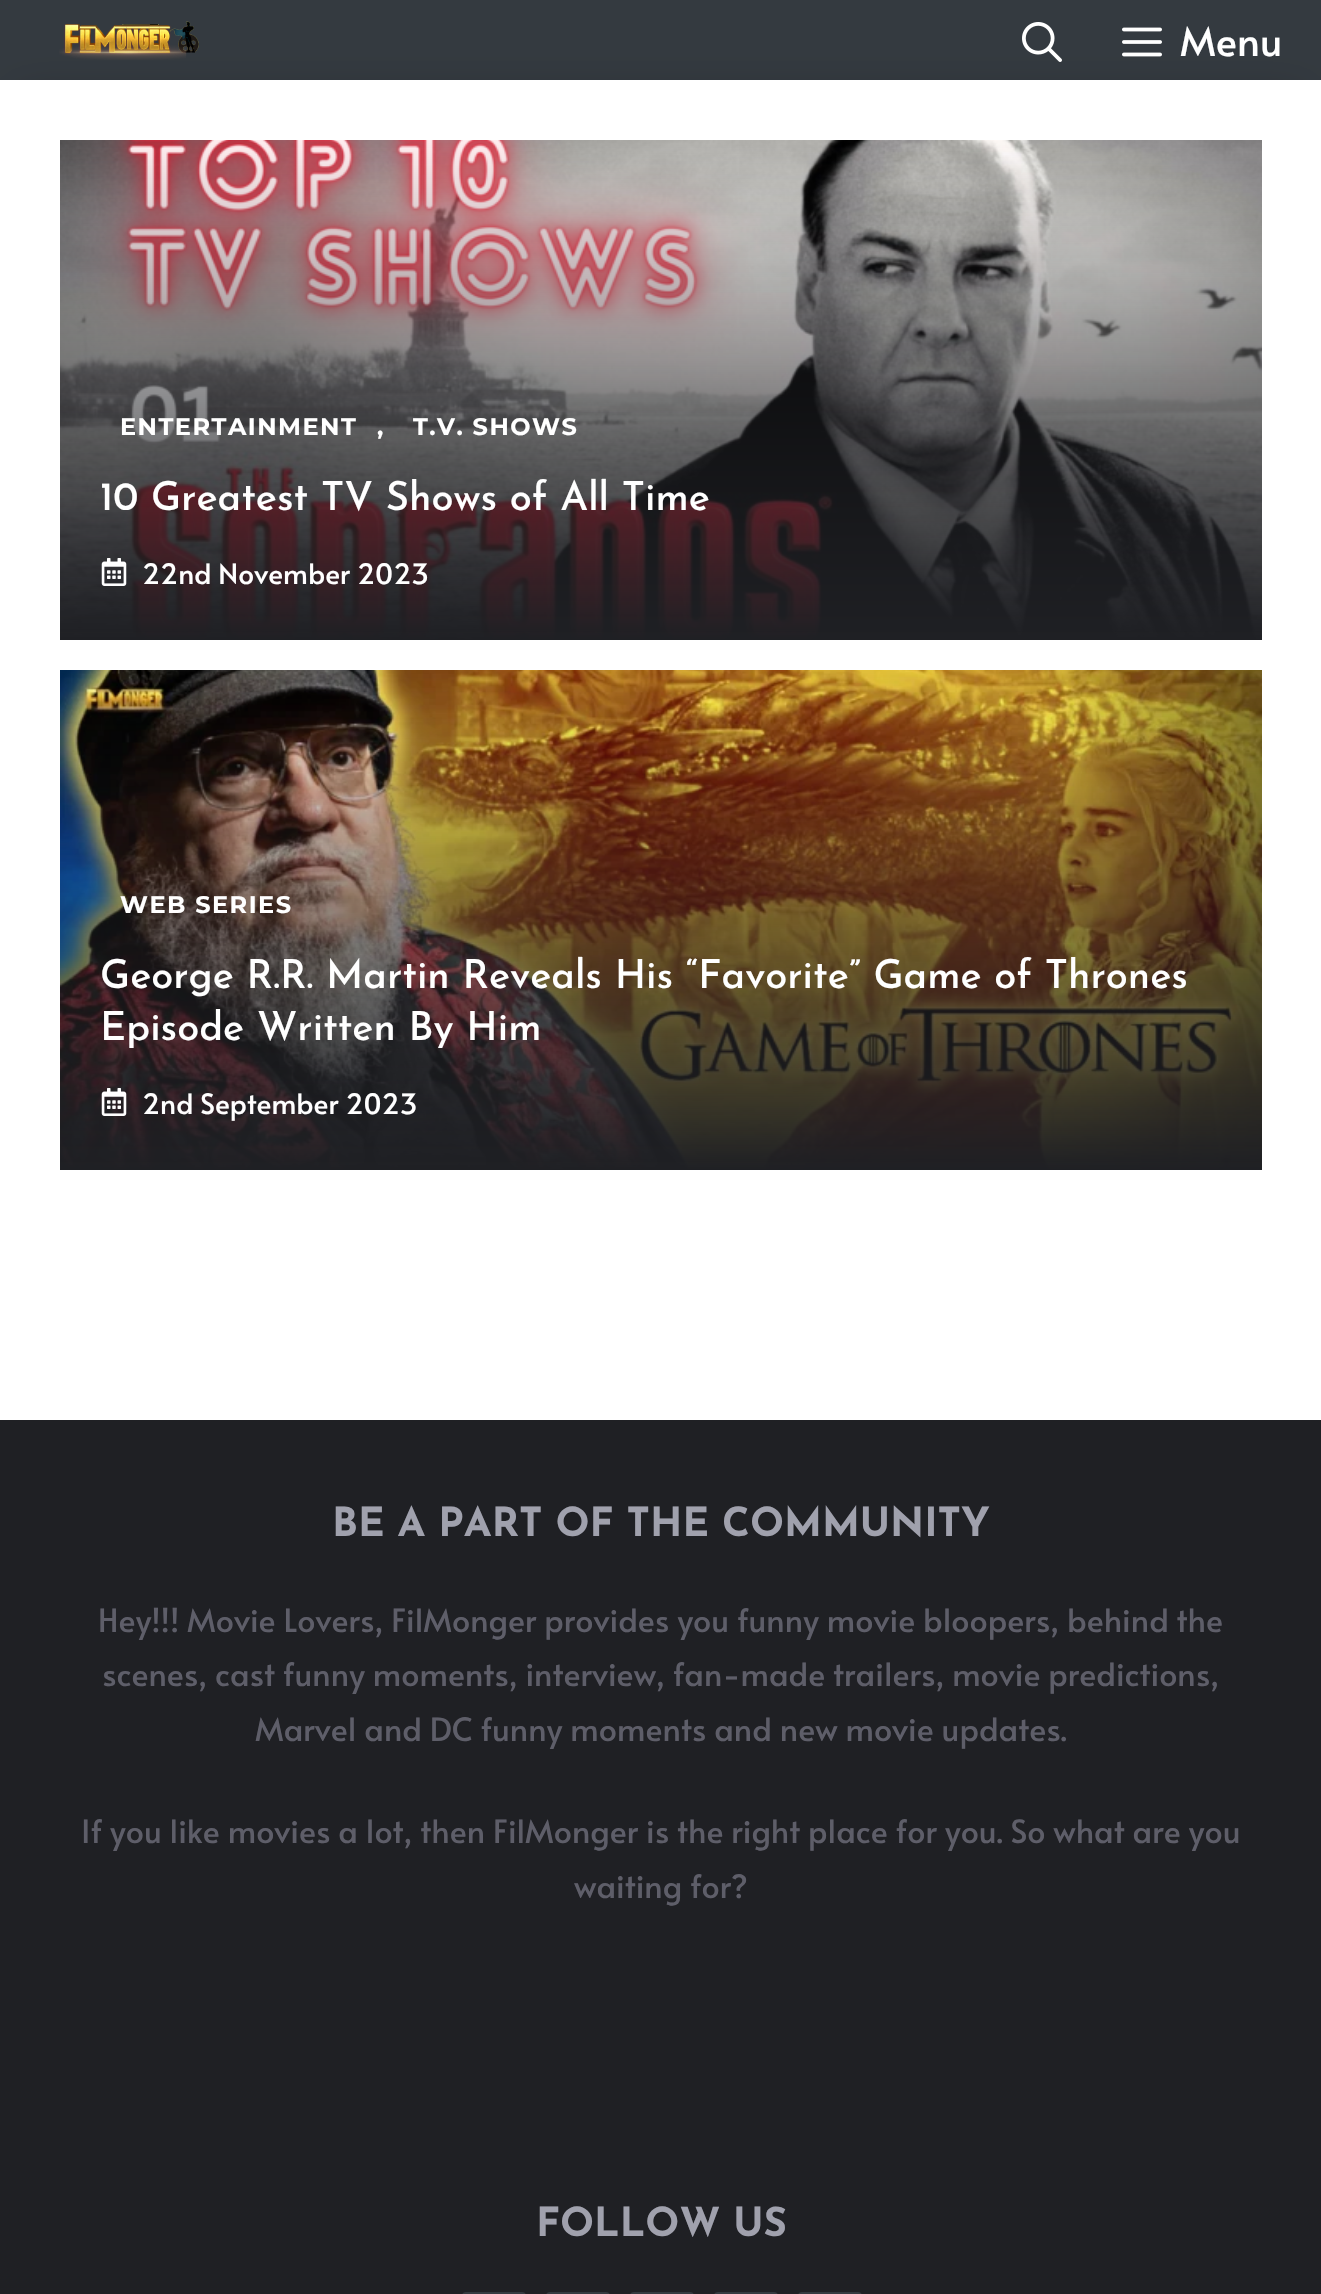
#include "include/core/SkBlurTypes.h"
#include "include/core/SkCanvas.h"
#include "include/core/SkData.h"
#include "include/core/SkFont.h"
#include "include/core/SkFontMgr.h"
#include "include/core/SkImage.h"
#include "include/core/SkMaskFilter.h"
#include "include/core/SkPaint.h"
#include "include/core/SkPathBuilder.h"
#include "include/core/SkTextBlob.h"
#include "include/effects/SkDashPathEffect.h"
#include "include/effects/SkGradientShader.h"
#include "include/utils/SkParsePath.h"

extern sk_sp<SkFontMgr> fontMgr;

void draw(SkCanvas* canvas) {
  SkPaint p;
  p.setAntiAlias(true);
  auto spacedText = [&](const char* s, float x, float y, const SkFont& font, const SkPaint& ink, float letter, float word) {
    std::vector<SkGlyphID> glyphs(font.countText(s, strlen(s), SkTextEncoding::kUTF8));
    std::vector<float> xs(glyphs.size());
    font.textToGlyphs(s, strlen(s), SkTextEncoding::kUTF8, glyphs);
    font.getXPos(glyphs, xs, x);
    float extra = 0;
    for (size_t i = 0; i < glyphs.size(); i++) {
      xs[i] += extra;
      extra += letter + word * (glyphs[i] == font.unicharToGlyph(' '));
    }
    canvas->drawTextBlob(SkTextBlob::MakeFromPosHGlyphs(glyphs, xs, y, font), 0, 0, ink);
  };
  canvas->clear(SkColorSetRGB(52, 58, 64));
  p.setColor(SkColorSetARGB(77, 0, 0, 0));
  p.setMaskFilter(SkMaskFilter::MakeBlur(kNormal_SkBlurStyle, 20));
  canvas->drawRect(SkRect::MakeLTRB(20, 100, 1302, 1400), p);
  p.setMaskFilter(nullptr);
  canvas->drawImageRect(SkImages::DeferredFromEncodedData(SkData::MakeFromFileName("images/1.png")), SkRect::MakeLTRB(59, 21, 199, 60), SkSamplingOptions());
  canvas->drawImageRect(SkImages::DeferredFromEncodedData(SkData::MakeFromFileName("images/2.png")), SkRect::MakeLTRB(1022, 22, 1062, 62), SkSamplingOptions());
  canvas->drawImageRect(SkImages::DeferredFromEncodedData(SkData::MakeFromFileName("images/3.png")), SkRect::MakeLTRB(1122, 27, 1162, 57), SkSamplingOptions());
  p.setColor(SK_ColorWHITE);
  canvas->drawRect(SkRect::MakeLTRB(0, 80, 1321, 1420), p);
  canvas->drawImageRect(SkImages::DeferredFromEncodedData(SkData::MakeFromFileName("images/4.png")), SkRect::MakeLTRB(60, 140, 1262, 640), SkSamplingOptions());
  canvas->drawImageRect(SkImages::DeferredFromEncodedData(SkData::MakeFromFileName("images/5.png")), SkRect::MakeLTRB(101, 558, 127, 586), SkSamplingOptions());
  canvas->drawImageRect(SkImages::DeferredFromEncodedData(SkData::MakeFromFileName("images/6.png")), SkRect::MakeLTRB(60, 670, 1262, 1170), SkSamplingOptions());
  canvas->drawImageRect(SkImages::DeferredFromEncodedData(SkData::MakeFromFileName("images/7.png")), SkRect::MakeLTRB(101, 1088, 127, 1116), SkSamplingOptions());
  p.setColor(SkColorSetRGB(31, 32, 36));
  canvas->drawRect(SkRect::MakeLTRB(0, 1420, 1321, 2294), p);
  p.setColor(SkColorSetRGB(52, 58, 64));
  canvas->drawRoundRect(SkRect::MakeLTRB(462, 2292, 526, 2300), 6, 6, p);
  canvas->drawRoundRect(SkRect::MakeLTRB(546, 2292, 610, 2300), 6, 6, p);
  canvas->drawRoundRect(SkRect::MakeLTRB(630, 2292, 694, 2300), 6, 6, p);
  canvas->drawRoundRect(SkRect::MakeLTRB(714, 2292, 778, 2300), 6, 6, p);
  canvas->drawRoundRect(SkRect::MakeLTRB(798, 2292, 862, 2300), 6, 6, p);
  SkFont font1(fontMgr->matchFamilyStyle("Alata", SkFontStyle::Normal()), 40);
  font1.setSubpixel(true);
  p.setColor(SK_ColorWHITE);
  canvas->drawString("Menu", 1180, 56, font1, p);
  SkFont font2(fontMgr->matchFamilyStyle("Montserrat", SkFontStyle::Bold()), 24);
  font2.setSubpixel(true);
  spacedText("ENTERTAINMENT", 120, 435, font2, p, 1.5f, 0);
  spacedText(",", 377, 435, font2, p, 1.5f, 0);
  spacedText("T.V. SHOWS", 413, 435, font2, p, 1.5f, 0);
  SkFont font3(fontMgr->matchFamilyStyle("Josefin Sans", SkFontStyle(500, SkFontStyle::kNormal_Width, SkFontStyle::kUpright_Slant)), 40);
  font3.setSubpixel(true);
  canvas->drawString("10 Greatest TV Shows of All Time", 100, 510, font3, p);
  SkFont font4(fontMgr->matchFamilyStyle("Alata", SkFontStyle::Normal()), 28);
  font4.setSubpixel(true);
  canvas->drawString("22nd November 2023", 142, 584, font4, p);
  spacedText("WEB SERIES", 120, 913, font2, p, 1.5f, 0);
  canvas->drawString("George R.R. Martin Reveals His “Favorite” Game of Thrones", 100, 988, font3, p);
  canvas->drawString("Episode Written By Him", 100, 1040, font3, p);
  canvas->drawString("2nd September 2023", 142, 1114, font4, p);
  SkFont font5(fontMgr->matchFamilyStyle("Josefin Sans", SkFontStyle::Bold()), 40);
  font5.setSubpixel(true);
  p.setColor(SkColorSetRGB(160, 161, 173));
  canvas->drawString("BE A PART OF THE COMMUNITY", 332, 1536, font5, p);
  SkFont font6(fontMgr->matchFamilyStyle("Alata", SkFontStyle::Normal()), 32);
  font6.setSubpixel(true);
  p.setColor(SkColorSetRGB(94, 94, 105));
  canvas->drawString("Hey!!! Movie Lovers, FilMonger provides you funny movie bloopers, behind the", 98, 1632, font6, p);
  canvas->drawString("scenes, cast funny moments, interview, fan-made trailers, movie predictions,", 102, 1686, font6, p);
  canvas->drawString("Marvel and DC funny moments and new movie updates.", 255, 1741, font6, p);
  canvas->drawString("If you like movies a lot, then FilMonger is the right place for you. So what are you", 81, 1843, font6, p);
  canvas->drawString("waiting for?", 574, 1898, font6, p);
  p.setColor(SkColorSetRGB(160, 161, 173));
  canvas->drawString("FOLLOW US", 536, 2236, font5, p);
}
